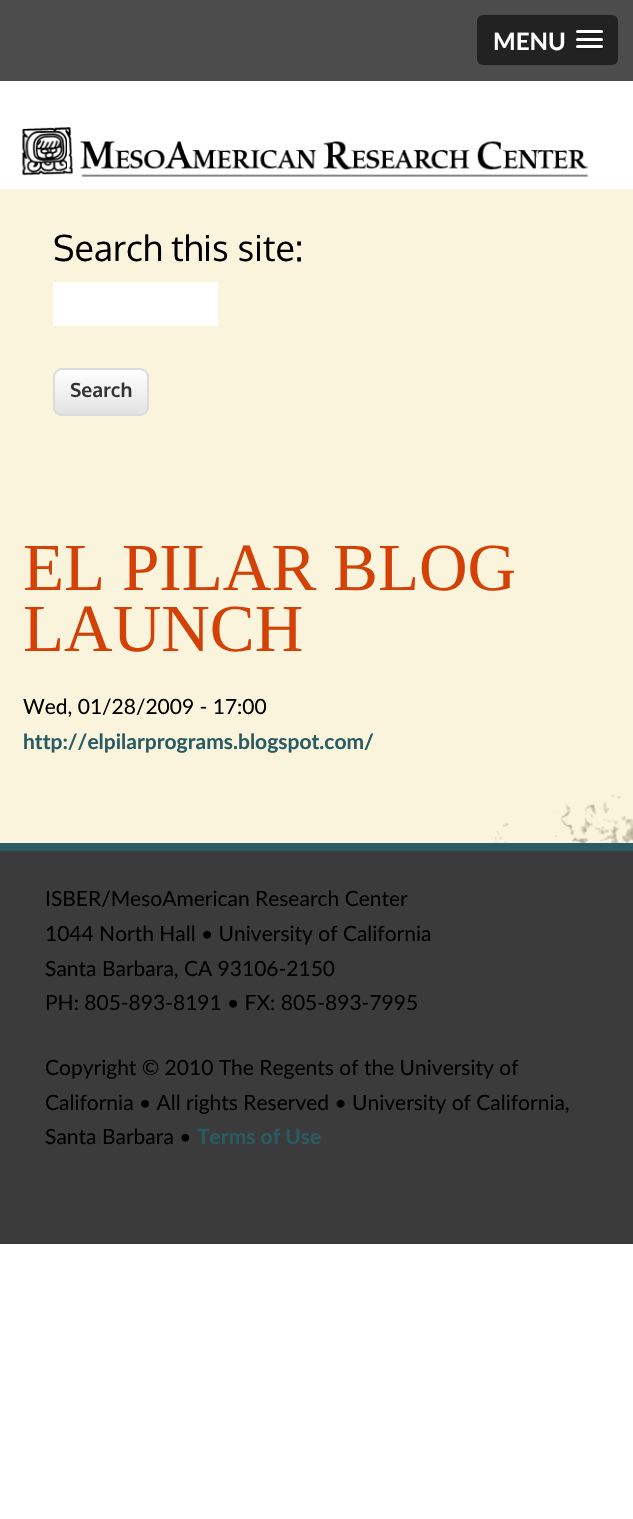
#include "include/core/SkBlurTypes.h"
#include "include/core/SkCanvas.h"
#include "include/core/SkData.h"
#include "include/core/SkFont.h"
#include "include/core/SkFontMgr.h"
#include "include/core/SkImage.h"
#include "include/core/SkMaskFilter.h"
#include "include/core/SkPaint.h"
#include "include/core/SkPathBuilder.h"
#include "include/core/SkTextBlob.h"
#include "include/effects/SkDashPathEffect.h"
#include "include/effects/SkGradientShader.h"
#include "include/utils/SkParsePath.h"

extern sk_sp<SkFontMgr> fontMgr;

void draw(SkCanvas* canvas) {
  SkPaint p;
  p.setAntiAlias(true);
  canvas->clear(SK_ColorWHITE);
  p.setColor(SkColorSetRGB(76, 76, 76));
  canvas->drawRect(SkRect::MakeLTRB(0, 0, 633, 81), p);
  p.setColor(SkColorSetRGB(34, 34, 34));
  canvas->drawRoundRect(SkRect::MakeLTRB(477, 15, 618, 65), 6, 6, p);
  p.setColor(SkColorSetRGB(26, 26, 26));
  canvas->drawPath(SkPathBuilder().moveTo(576.5f, 32.5f).lineTo(576, 34).cubicTo(576.5f, 36, 581, 35, 581.5f, 35).lineTo(597.5f, 35).cubicTo(598, 35, 602.5f, 36, 603, 34).lineTo(602.5f, 32.5f).lineTo(601.5f, 33).lineTo(577.5f, 33).close().detach(), p);
  p.setColor(SK_ColorWHITE);
  canvas->drawRoundRect(SkRect::MakeLTRB(576, 30, 603, 33), 1.5f, 1.5f, p);
  p.setColor(SkColorSetRGB(26, 26, 26));
  canvas->drawPath(SkPathBuilder().moveTo(576, 39.5f).cubicTo(574.5f, 43, 581.5f, 42, 581.5f, 42).lineTo(597.5f, 42).cubicTo(597.5f, 42, 604.5f, 43, 603, 39.5f).cubicTo(602.5f, 40, 602, 40.5f, 601.5f, 40.5f).lineTo(577.5f, 40.5f).cubicTo(577, 40.5f, 576.5f, 40, 576, 39.5f).close().detach(), p);
  p.setColor(SK_ColorWHITE);
  canvas->drawRoundRect(SkRect::MakeLTRB(576, 38, 603, 41), 1.5f, 1.5f, p);
  p.setColor(SkColorSetRGB(26, 26, 26));
  canvas->drawPath(SkPathBuilder().moveTo(576.5f, 47.5f).lineTo(576, 49).cubicTo(576.5f, 51, 581, 50, 581.5f, 50).lineTo(597.5f, 50).cubicTo(598, 50, 602.5f, 51, 603, 49).lineTo(602.5f, 47.5f).lineTo(601.5f, 48).lineTo(577.5f, 48).close().detach(), p);
  p.setColor(SK_ColorWHITE);
  canvas->drawRoundRect(SkRect::MakeLTRB(576, 45, 603, 48), 1.5f, 1.5f, p);
  canvas->drawImageRect(SkImages::DeferredFromEncodedData(SkData::MakeFromFileName("images/1.png")), SkRect::MakeLTRB(494, 794, 633, 843), SkSamplingOptions());
  canvas->drawImageRect(SkImages::DeferredFromEncodedData(SkData::MakeFromFileName("images/2.png")), SkRect::MakeLTRB(22, 127, 588, 177), SkSamplingOptions());
  p.setColor(SkColorSetARGB(179, 249, 239, 205));
  canvas->drawRect(SkRect::MakeLTRB(0, 189, 633, 843), p);
  p.setColor(SK_ColorWHITE);
  canvas->drawRect(SkRect::MakeLTRB(53, 282, 218, 326), p);
  canvas->save();
  canvas->clipPath(SkPathBuilder().moveTo(62, 368).lineTo(140, 368).cubicTo(145, 368, 149, 372, 149, 377).lineTo(149, 407).cubicTo(149, 412, 145, 416, 140, 416).lineTo(62, 416).cubicTo(57, 416, 53, 412, 53, 407).lineTo(53, 377).cubicTo(53, 372, 57, 368, 62, 368).close().detach(), true);
  {
    const SkColor colors[] = {SK_ColorWHITE, SkColorSetRGB(227, 227, 227)};
    const float stops[] = {0, 1};
    const SkPoint ends[] = {{101, 369}, {101, 414}};
    p.setShader(SkGradientShader::MakeLinear(ends, colors, stops, 2, SkTileMode::kClamp));
    p.setAlpha(255);
  }
  canvas->drawRect(SkRect::MakeLTRB(53, 369, 149, 414), p);
  canvas->restore();
  p.setStyle(SkPaint::kStroke_Style);
  p.setStrokeWidth(2);
  p.setShader(nullptr);
  p.setColor(SkColorSetRGB(219, 219, 219));
  canvas->drawRoundRect(SkRect::MakeLTRB(54, 369, 148, 415), 8, 8, p);
  p.setStyle(SkPaint::kFill_Style);
  p.setColor(SkColorSetRGB(59, 59, 59));
  canvas->drawRect(SkRect::MakeLTRB(0, 851, 633, 1244), p);
  p.setColor(SkColorSetRGB(40, 91, 99));
  canvas->drawRect(SkRect::MakeLTRB(0, 843, 633, 851), p);
  SkFont font1(fontMgr->matchFamilyStyle("Lato", SkFontStyle::Bold()), 24);
  font1.setSubpixel(true);
  p.setColor(SK_ColorWHITE);
  canvas->drawString("MENU", 493, 50, font1, p);
  SkFont font2(fontMgr->matchFamilyStyle("Oxygen", SkFontStyle::Normal()), 35.75f);
  font2.setSubpixel(true);
  p.setColor(SK_ColorBLACK);
  canvas->drawString("Search this site:", 53, 261, font2, p);
  SkFont font3(fontMgr->matchFamilyStyle("Oxygen", SkFontStyle::Bold()), 19.5f);
  font3.setSubpixel(true);
  p.setColor(SkColorSetRGB(51, 51, 51));
  canvas->drawString("Search", 70, 397, font3, p);
  SkFont font4(fontMgr->matchFamilyStyle("Liberation Serif", SkFontStyle::Normal()), 67.25f);
  font4.setSubpixel(true);
  p.setColor(SkColorSetRGB(211, 65, 7));
  canvas->drawString("EL PILAR BLOG", 23, 590, font4, p);
  canvas->drawString("LAUNCH", 23, 651, font4, p);
  SkFont font5(fontMgr->matchFamilyStyle("Lato", SkFontStyle::Normal()), 21);
  font5.setSubpixel(true);
  p.setColor(SK_ColorBLACK);
  canvas->drawString("Wed, 01/28/2009 - 17:00", 23, 714, font5, p);
  SkFont font6(fontMgr->matchFamilyStyle("Lato", SkFontStyle::Bold()), 21);
  font6.setSubpixel(true);
  p.setColor(SkColorSetRGB(40, 91, 99));
  canvas->drawString("http://elpilarprograms.blogspot.com/", 23, 749, font6, p);
  p.setColor(SK_ColorBLACK);
  canvas->drawString("ISBER/MesoAmerican Research Center", 45, 906, font5, p);
  canvas->drawString("1044 North Hall • University of California", 45, 941, font5, p);
  canvas->drawString("Santa Barbara, CA 93106-2150", 45, 976, font5, p);
  canvas->drawString("PH: 805-893-8191 • FX: 805-893-7995", 45, 1010, font5, p);
  canvas->drawString("Copyright © 2010 The Regents of the University of", 45, 1075, font5, p);
  canvas->drawString("California • All rights Reserved • University of California,", 45, 1110, font5, p);
  canvas->drawString("Santa Barbara •", 45, 1144, font5, p);
  p.setColor(SkColorSetRGB(40, 91, 99));
  canvas->drawString("Terms of Use", 197, 1144, font6, p);
}
